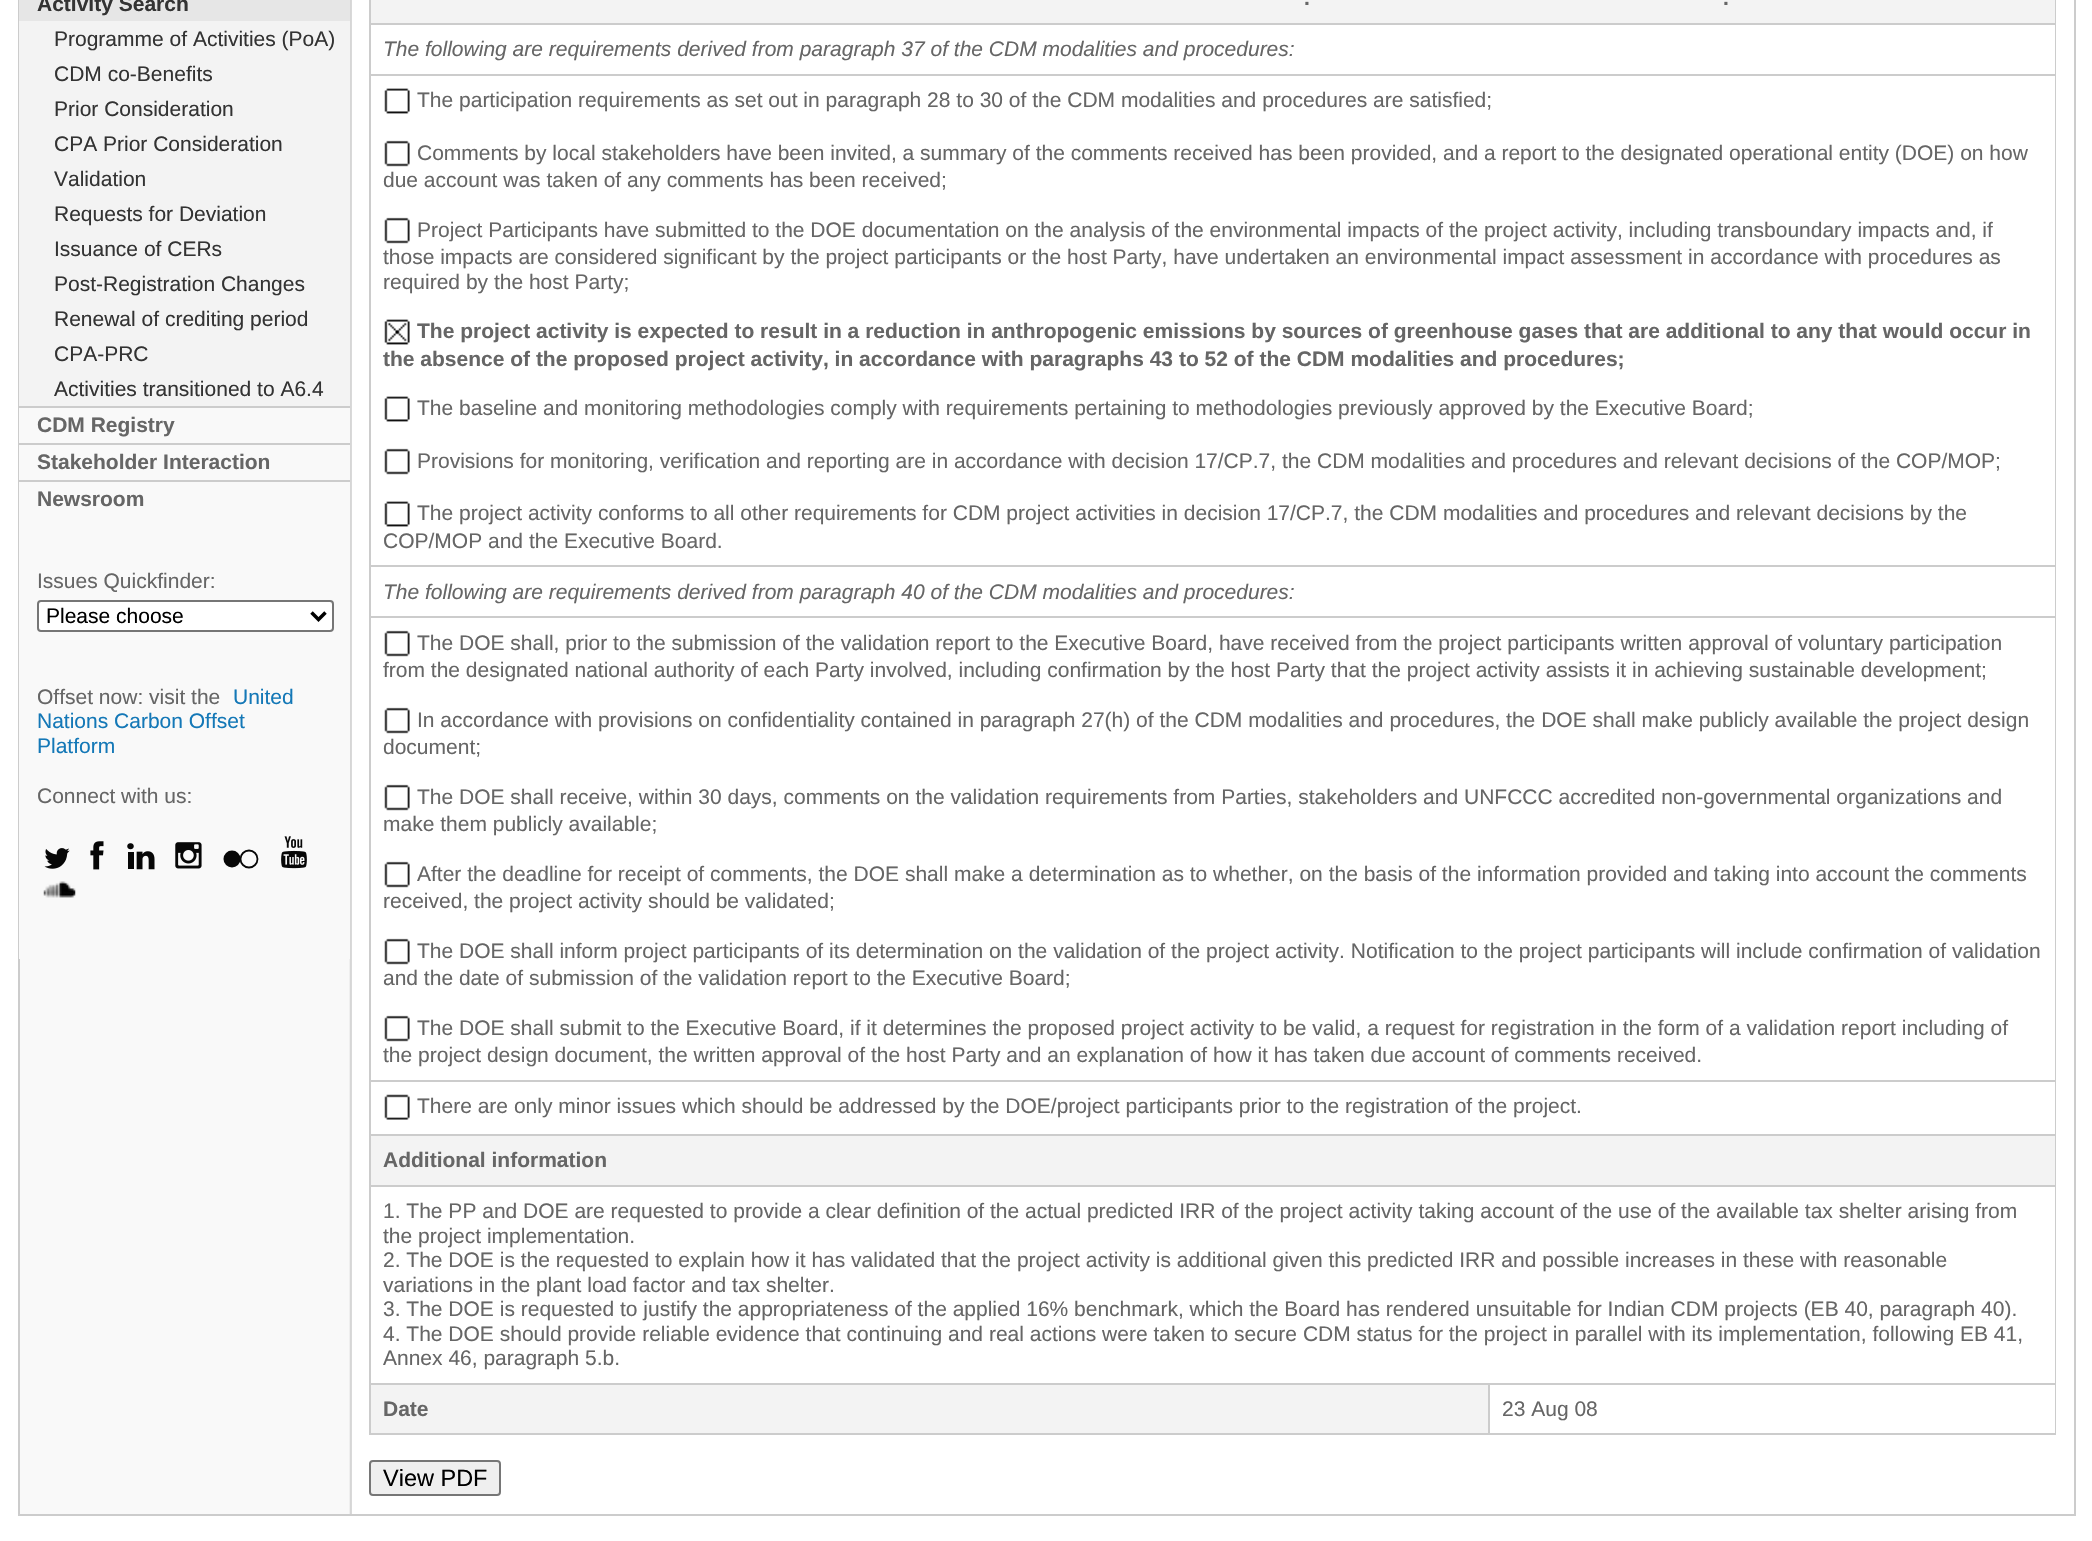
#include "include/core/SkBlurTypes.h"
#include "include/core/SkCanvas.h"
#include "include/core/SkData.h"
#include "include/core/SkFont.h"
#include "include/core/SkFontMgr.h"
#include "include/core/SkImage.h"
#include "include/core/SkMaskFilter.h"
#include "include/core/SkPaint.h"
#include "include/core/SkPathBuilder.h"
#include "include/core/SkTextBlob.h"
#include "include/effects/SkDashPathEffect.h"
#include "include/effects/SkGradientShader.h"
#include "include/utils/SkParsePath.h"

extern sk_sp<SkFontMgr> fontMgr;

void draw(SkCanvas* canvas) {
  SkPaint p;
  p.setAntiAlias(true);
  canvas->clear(SK_ColorWHITE);
  canvas->drawImageRect(SkImages::DeferredFromEncodedData(SkData::MakeFromFileName("images/1.png")), SkRect::MakeLTRB(20, 0, 352, 1514), SkSamplingOptions());
  p.setStyle(SkPaint::kStroke_Style);
  p.setStrokeWidth(2);
  p.setColor(SkColorSetRGB(204, 204, 204));
  canvas->drawRect(SkRect::MakeLTRB(19, -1, 2075, 1515), p);
  p.setStyle(SkPaint::kFill_Style);
  p.setColor(SkColorSetRGB(249, 249, 249));
  canvas->drawRect(SkRect::MakeLTRB(19, 408, 350, 959), p);
  p.setColor(SkColorSetRGB(230, 230, 230));
  canvas->drawRect(SkRect::MakeLTRB(19, 0, 350, 21), p);
  p.setColor(SkColorSetRGB(243, 243, 243));
  canvas->drawRect(SkRect::MakeLTRB(19, 21, 350, 406), p);
  p.setColor(SkColorSetRGB(204, 204, 204));
  canvas->drawRect(SkRect::MakeLTRB(19, 406, 350, 408), p);
  canvas->drawRect(SkRect::MakeLTRB(19, 443, 350, 445), p);
  canvas->drawRect(SkRect::MakeLTRB(19, 480, 350, 482), p);
  p.setColor(SK_ColorWHITE);
  canvas->drawRoundRect(SkRect::MakeLTRB(38, 601, 333, 631), 3, 3, p);
  p.setStyle(SkPaint::kStroke_Style);
  p.setColor(SkColorSetRGB(118, 118, 118));
  canvas->drawRoundRect(SkRect::MakeLTRB(38, 601, 333, 631), 3, 3, p);
  p.setStrokeWidth(3.5f);
  p.setColor(SK_ColorBLACK);
  canvas->drawPath(SkPathBuilder().moveTo(311.5f, 612.5f).lineTo(318.5f, 619.5f).lineTo(325.5f, 612.5f).detach(), p);
  canvas->drawImageRect(SkImages::DeferredFromEncodedData(SkData::MakeFromFileName("images/2.png")), SkRect::MakeLTRB(44, 848, 70, 869), SkSamplingOptions());
  canvas->drawImageRect(SkImages::DeferredFromEncodedData(SkData::MakeFromFileName("images/3.png")), SkRect::MakeLTRB(90, 841, 104, 870), SkSamplingOptions());
  canvas->drawImageRect(SkImages::DeferredFromEncodedData(SkData::MakeFromFileName("images/4.png")), SkRect::MakeLTRB(127, 843, 155, 870), SkSamplingOptions());
  canvas->drawImageRect(SkImages::DeferredFromEncodedData(SkData::MakeFromFileName("images/5.png")), SkRect::MakeLTRB(175, 842, 202, 869), SkSamplingOptions());
  p.setStyle(SkPaint::kFill_Style);
  p.setColor(SkColorSetRGB(7, 7, 7));
  canvas->drawCircle(232, 859, 8.5f, p);
  p.setStyle(SkPaint::kStroke_Style);
  p.setStrokeWidth(1.8f);
  canvas->drawCircle(249, 859, 8.5f, p);
  canvas->drawImageRect(SkImages::DeferredFromEncodedData(SkData::MakeFromFileName("images/6.png")), SkRect::MakeLTRB(281, 836, 307, 869), SkSamplingOptions());
  canvas->drawImageRect(SkImages::DeferredFromEncodedData(SkData::MakeFromFileName("images/7.png")), SkRect::MakeLTRB(43, 881, 76, 898), SkSamplingOptions());
  p.setStyle(SkPaint::kFill_Style);
  p.setColor(SkColorSetRGB(204, 204, 204));
  canvas->drawRect(SkRect::MakeLTRB(369, 0, 371, 1433), p);
  canvas->drawRect(SkRect::MakeLTRB(2055, 0, 2056, 1435), p);
  canvas->drawRect(SkRect::MakeLTRB(369, 1433, 2056, 1435), p);
  p.setColor(SkColorSetRGB(243, 243, 243));
  canvas->drawRect(SkRect::MakeLTRB(371, 0, 2055, 23), p);
  p.setColor(SkColorSetRGB(204, 204, 204));
  canvas->drawRect(SkRect::MakeLTRB(369, 23, 2056, 25), p);
  canvas->drawRect(SkRect::MakeLTRB(369, 74, 2056, 76), p);
  canvas->drawImageRect(SkImages::DeferredFromEncodedData(SkData::MakeFromFileName("images/8.png")), SkRect::MakeLTRB(384, 88, 410, 114), SkSamplingOptions());
  canvas->drawImageRect(SkImages::DeferredFromEncodedData(SkData::MakeFromFileName("images/9.png")), SkRect::MakeLTRB(384, 140, 410, 167), SkSamplingOptions());
  canvas->drawImageRect(SkImages::DeferredFromEncodedData(SkData::MakeFromFileName("images/9.png")), SkRect::MakeLTRB(384, 217, 410, 244), SkSamplingOptions());
  canvas->drawImageRect(SkImages::DeferredFromEncodedData(SkData::MakeFromFileName("images/10.png")), SkRect::MakeLTRB(384, 319, 410, 345), SkSamplingOptions());
  canvas->drawImageRect(SkImages::DeferredFromEncodedData(SkData::MakeFromFileName("images/8.png")), SkRect::MakeLTRB(384, 396, 410, 422), SkSamplingOptions());
  canvas->drawImageRect(SkImages::DeferredFromEncodedData(SkData::MakeFromFileName("images/9.png")), SkRect::MakeLTRB(384, 448, 410, 475), SkSamplingOptions());
  canvas->drawImageRect(SkImages::DeferredFromEncodedData(SkData::MakeFromFileName("images/8.png")), SkRect::MakeLTRB(384, 501, 410, 527), SkSamplingOptions());
  canvas->drawRect(SkRect::MakeLTRB(369, 565, 2056, 567), p);
  canvas->drawRect(SkRect::MakeLTRB(369, 616, 2056, 618), p);
  canvas->drawImageRect(SkImages::DeferredFromEncodedData(SkData::MakeFromFileName("images/9.png")), SkRect::MakeLTRB(384, 630, 410, 657), SkSamplingOptions());
  canvas->drawImageRect(SkImages::DeferredFromEncodedData(SkData::MakeFromFileName("images/9.png")), SkRect::MakeLTRB(384, 707, 410, 734), SkSamplingOptions());
  canvas->drawImageRect(SkImages::DeferredFromEncodedData(SkData::MakeFromFileName("images/9.png")), SkRect::MakeLTRB(384, 784, 410, 811), SkSamplingOptions());
  canvas->drawImageRect(SkImages::DeferredFromEncodedData(SkData::MakeFromFileName("images/9.png")), SkRect::MakeLTRB(384, 861, 410, 888), SkSamplingOptions());
  canvas->drawImageRect(SkImages::DeferredFromEncodedData(SkData::MakeFromFileName("images/9.png")), SkRect::MakeLTRB(384, 938, 410, 965), SkSamplingOptions());
  canvas->drawImageRect(SkImages::DeferredFromEncodedData(SkData::MakeFromFileName("images/9.png")), SkRect::MakeLTRB(384, 1015, 410, 1042), SkSamplingOptions());
  canvas->drawRect(SkRect::MakeLTRB(369, 1080, 2056, 1082), p);
  canvas->drawImageRect(SkImages::DeferredFromEncodedData(SkData::MakeFromFileName("images/11.png")), SkRect::MakeLTRB(384, 1094, 410, 1120), SkSamplingOptions());
  p.setColor(SkColorSetRGB(243, 243, 243));
  canvas->drawRect(SkRect::MakeLTRB(371, 1136, 2055, 1185), p);
  p.setColor(SkColorSetRGB(204, 204, 204));
  canvas->drawRect(SkRect::MakeLTRB(369, 1134, 2056, 1136), p);
  canvas->drawRect(SkRect::MakeLTRB(369, 1185, 2056, 1187), p);
  p.setColor(SkColorSetRGB(243, 243, 243));
  canvas->drawRect(SkRect::MakeLTRB(371, 1385, 1488, 1433), p);
  p.setColor(SkColorSetRGB(204, 204, 204));
  canvas->drawRect(SkRect::MakeLTRB(1488, 1383, 2056, 1385), p);
  canvas->drawRect(SkRect::MakeLTRB(1488, 1383, 1490, 1435), p);
  canvas->drawRect(SkRect::MakeLTRB(369, 1383, 1489, 1385), p);
  p.setColor(SkColorSetRGB(239, 239, 239));
  canvas->drawRoundRect(SkRect::MakeLTRB(370, 1461, 500, 1495), 3, 3, p);
  p.setStyle(SkPaint::kStroke_Style);
  p.setStrokeWidth(2);
  p.setColor(SkColorSetRGB(118, 118, 118));
  canvas->drawRoundRect(SkRect::MakeLTRB(370, 1461, 500, 1495), 3, 3, p);
  SkFont font1(fontMgr->matchFamilyStyle("Liberation Sans", SkFontStyle::Bold()), 21);
  font1.setSubpixel(true);
  p.setStyle(SkPaint::kFill_Style);
  p.setColor(SkColorSetRGB(51, 51, 51));
  canvas->drawString("Activity Search", 37, 11, font1, p);
  SkFont font2(fontMgr->matchFamilyStyle("Liberation Sans", SkFontStyle::Normal()), 21);
  font2.setSubpixel(true);
  canvas->drawString("Programme of Activities (PoA)", 54, 46, font2, p);
  canvas->drawString("CDM co-Benefits", 54, 81, font2, p);
  canvas->drawString("Prior Consideration", 54, 116, font2, p);
  canvas->drawString("CPA Prior Consideration", 54, 151, font2, p);
  canvas->drawString("Validation", 54, 186, font2, p);
  canvas->drawString("Requests for Deviation", 54, 221, font2, p);
  canvas->drawString("Issuance of CERs", 54, 256, font2, p);
  canvas->drawString("Post-Registration Changes", 54, 291, font2, p);
  canvas->drawString("Renewal of crediting period", 54, 326, font2, p);
  canvas->drawString("CPA-PRC", 54, 361, font2, p);
  canvas->drawString("Activities transitioned to A6.4", 54, 396, font2, p);
  p.setColor(SkColorSetRGB(102, 102, 102));
  canvas->drawString("CDM Registry", 37, 432, font1, p);
  canvas->drawString("Stakeholder Interaction", 37, 469, font1, p);
  canvas->drawString("Newsroom", 37, 506, font1, p);
  canvas->drawString("Issues Quickfinder:", 37, 588, font2, p);
  p.setColor(SK_ColorBLACK);
  canvas->drawString("Please choose", 46, 623, font2, p);
  p.setColor(SkColorSetRGB(102, 102, 102));
  canvas->drawString("Offset now: visit the", 37, 704, font2, p);
  p.setColor(SkColorSetRGB(20, 120, 183));
  canvas->drawString("United", 233, 704, font2, p);
  canvas->drawString("Nations Carbon Offset", 37, 728, font2, p);
  canvas->drawString("Platform", 37, 753, font2, p);
  p.setColor(SkColorSetRGB(102, 102, 102));
  canvas->drawString("Connect with us:", 37, 803, font2, p);
  canvas->drawString(".", 1304, 5, font1, p);
  canvas->drawString(".", 1723, 5, font1, p);
  SkFont font3(fontMgr->matchFamilyStyle("Liberation Sans", SkFontStyle::Italic()), 21);
  font3.setSubpixel(true);
  canvas->drawString("The following are requirements derived from paragraph 37 of the CDM modalities and procedures:", 383, 56, font3, p);
  canvas->drawString("The participation requirements as set out in paragraph 28 to 30 of the CDM modalities and procedures are satisfied;", 417, 107, font2, p);
  canvas->drawString("Comments by local stakeholders have been invited, a summary of the comments received has been provided, and a report to the designated operational entity (DOE) on how", 417, 160, font2, p);
  canvas->drawString("due account was taken of any comments has been received;", 383, 187, font2, p);
  canvas->drawString("Project Participants have submitted to the DOE documentation on the analysis of the environmental impacts of the project activity, including transboundary impacts and, if", 417, 237, font2, p);
  canvas->drawString("those impacts are considered significant by the project participants or the host Party, have undertaken an environmental impact assessment in accordance with procedures as", 383, 264, font2, p);
  canvas->drawString("required by the host Party;", 383, 289, font2, p);
  canvas->drawString("The project activity is expected to result in a reduction in anthropogenic emissions by sources of greenhouse gases that are additional to any that would occur in", 417, 338, font1, p);
  canvas->drawString("the absence of the proposed project activity, in accordance with paragraphs 43 to 52 of the CDM modalities and procedures;", 383, 366, font1, p);
  canvas->drawString("The baseline and monitoring methodologies comply with requirements pertaining to methodologies previously approved by the Executive Board;", 417, 415, font2, p);
  canvas->drawString("Provisions for monitoring, verification and reporting are in accordance with decision 17/CP.7, the CDM modalities and procedures and relevant decisions of the COP/MOP;", 417, 468, font2, p);
  canvas->drawString("The project activity conforms to all other requirements for CDM project activities in decision 17/CP.7, the CDM modalities and procedures and relevant decisions by the", 417, 520, font2, p);
  canvas->drawString("COP/MOP and the Executive Board.", 383, 548, font2, p);
  canvas->drawString("The following are requirements derived from paragraph 40 of the CDM modalities and procedures:", 383, 599, font3, p);
  canvas->drawString("The DOE shall, prior to the submission of the validation report to the Executive Board, have received from the project participants written approval of voluntary participation", 417, 650, font2, p);
  canvas->drawString("from the designated national authority of each Party involved, including confirmation by the host Party that the project activity assists it in achieving sustainable development;", 383, 677, font2, p);
  canvas->drawString("In accordance with provisions on confidentiality contained in paragraph 27(h) of the CDM modalities and procedures, the DOE shall make publicly available the project design", 417, 727, font2, p);
  canvas->drawString("document;", 383, 754, font2, p);
  canvas->drawString("The DOE shall receive, within 30 days, comments on the validation requirements from Parties, stakeholders and UNFCCC accredited non-governmental organizations and", 417, 804, font2, p);
  canvas->drawString("make them publicly available;", 383, 831, font2, p);
  canvas->drawString("After the deadline for receipt of comments, the DOE shall make a determination as to whether, on the basis of the information provided and taking into account the comments", 417, 881, font2, p);
  canvas->drawString("received, the project activity should be validated;", 383, 908, font2, p);
  canvas->drawString("The DOE shall inform project participants of its determination on the validation of the project activity. Notification to the project participants will include confirmation of validation", 417, 958, font2, p);
  canvas->drawString("and the date of submission of the validation report to the Executive Board;", 383, 985, font2, p);
  canvas->drawString("The DOE shall submit to the Executive Board, if it determines the proposed project activity to be valid, a request for registration in the form of a validation report including of", 417, 1035, font2, p);
  canvas->drawString("the project design document, the written approval of the host Party and an explanation of how it has taken due account of comments received.", 383, 1062, font2, p);
  canvas->drawString("There are only minor issues which should be addressed by the DOE/project participants prior to the registration of the project.", 417, 1113, font2, p);
  canvas->drawString("Additional information", 383, 1167, font1, p);
  canvas->drawString("1. The PP and DOE are requested to provide a clear definition of the actual predicted IRR of the project activity taking account of the use of the available tax shelter arising from", 383, 1218, font2, p);
  canvas->drawString("the project implementation.", 383, 1243, font2, p);
  canvas->drawString("2. The DOE is the requested to explain how it has validated that the project activity is additional given this predicted IRR and possible increases in these with reasonable", 383, 1267, font2, p);
  canvas->drawString("variations in the plant load factor and tax shelter.", 383, 1292, font2, p);
  canvas->drawString("3. The DOE is requested to justify the appropriateness of the applied 16% benchmark, which the Board has rendered unsuitable for Indian CDM projects (EB 40, paragraph 40).", 383, 1316, font2, p);
  canvas->drawString("4. The DOE should provide reliable evidence that continuing and real actions were taken to secure CDM status for the project in parallel with its implementation, following EB 41,", 383, 1341, font2, p);
  canvas->drawString("Annex 46, paragraph 5.b.", 383, 1365, font2, p);
  canvas->drawString("Date", 383, 1416, font1, p);
  canvas->drawString("23 Aug 08", 1502, 1416, font2, p);
  SkFont font4(fontMgr->matchFamilyStyle("Liberation Sans", SkFontStyle::Normal()), 23.5f);
  font4.setSubpixel(true);
  p.setColor(SK_ColorBLACK);
  canvas->drawString("View PDF", 383, 1486, font4, p);
}
